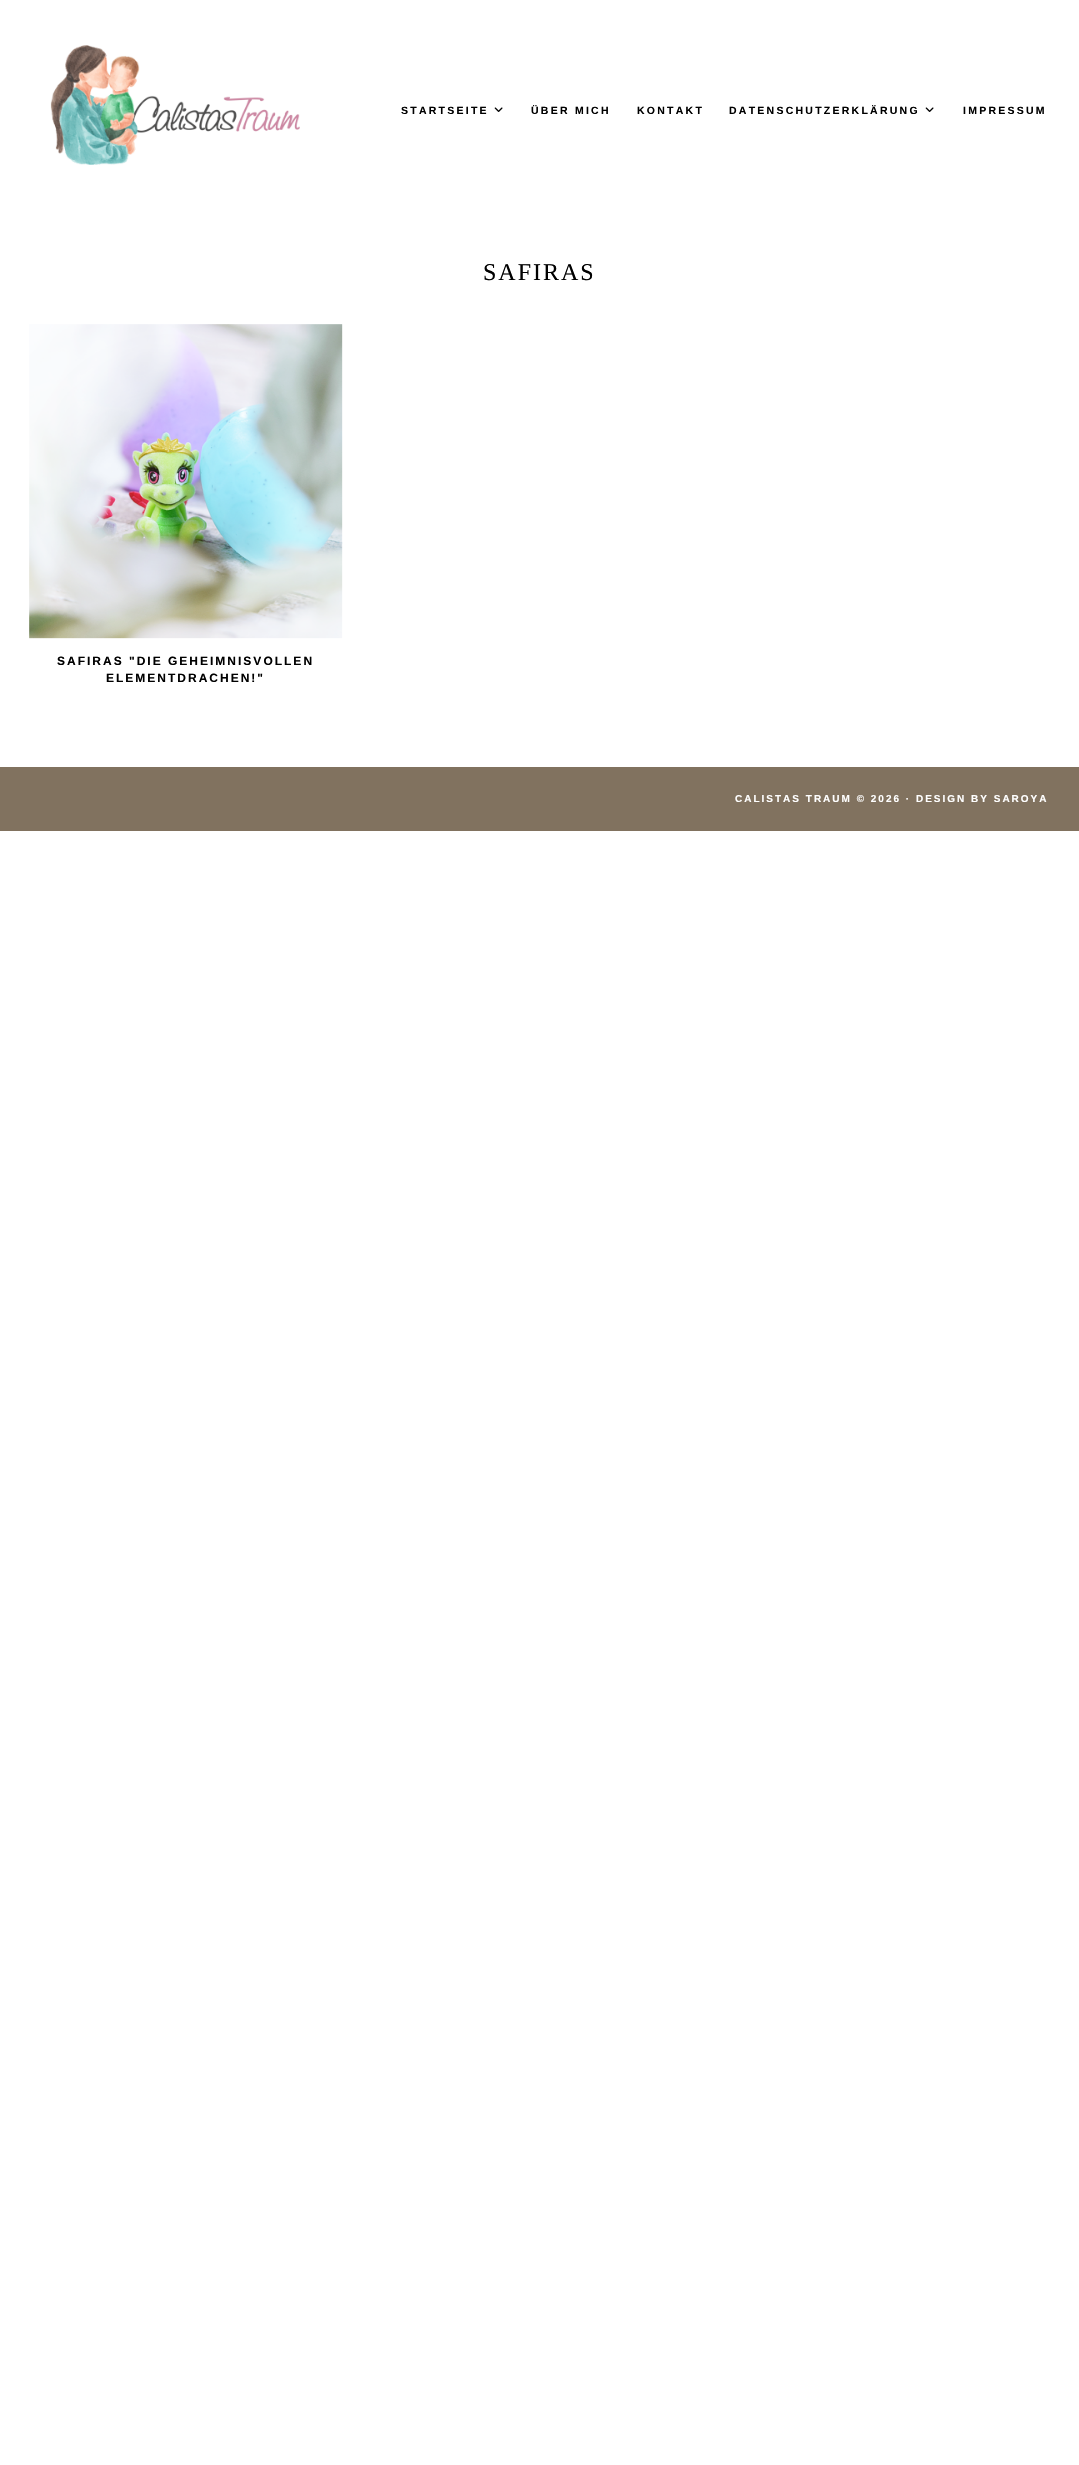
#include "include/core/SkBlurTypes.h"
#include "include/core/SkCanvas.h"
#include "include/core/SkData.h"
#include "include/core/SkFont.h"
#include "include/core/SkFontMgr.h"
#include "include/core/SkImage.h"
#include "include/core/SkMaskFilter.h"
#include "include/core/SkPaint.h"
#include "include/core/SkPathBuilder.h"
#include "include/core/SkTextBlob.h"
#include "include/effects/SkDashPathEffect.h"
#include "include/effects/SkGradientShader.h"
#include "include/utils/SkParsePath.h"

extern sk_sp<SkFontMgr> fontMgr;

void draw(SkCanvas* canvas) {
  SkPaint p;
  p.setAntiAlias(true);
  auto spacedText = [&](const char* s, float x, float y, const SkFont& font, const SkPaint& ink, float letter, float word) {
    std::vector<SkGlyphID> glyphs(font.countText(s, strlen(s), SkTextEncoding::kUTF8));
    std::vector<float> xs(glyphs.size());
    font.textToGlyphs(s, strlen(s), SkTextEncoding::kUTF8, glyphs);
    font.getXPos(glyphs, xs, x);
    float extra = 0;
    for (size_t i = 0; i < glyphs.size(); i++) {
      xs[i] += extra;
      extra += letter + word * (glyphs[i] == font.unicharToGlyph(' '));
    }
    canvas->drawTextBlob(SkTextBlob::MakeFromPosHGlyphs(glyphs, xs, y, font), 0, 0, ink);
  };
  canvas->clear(SK_ColorWHITE);
  canvas->drawImageRect(SkImages::DeferredFromEncodedData(SkData::MakeFromFileName("images/1.png")), SkRect::MakeLTRB(50, 45, 300, 165), SkSamplingOptions());
  canvas->drawImageRect(SkImages::DeferredFromEncodedData(SkData::MakeFromFileName("images/2.png")), SkRect::MakeLTRB(494, 107, 503, 112), SkSamplingOptions());
  canvas->drawImageRect(SkImages::DeferredFromEncodedData(SkData::MakeFromFileName("images/2.png")), SkRect::MakeLTRB(925, 107, 934, 112), SkSamplingOptions());
  canvas->drawImageRect(SkImages::DeferredFromEncodedData(SkData::MakeFromFileName("images/3.png")), SkRect::MakeLTRB(29, 324, 343, 639), SkSamplingOptions());
  p.setColor(SkColorSetRGB(129, 114, 95));
  canvas->drawRect(SkRect::MakeLTRB(0, 767, 1079, 831), p);
  SkFont font1(fontMgr->matchFamilyStyle("Liberation Sans", SkFontStyle::Bold()), 10.5f);
  font1.setSubpixel(true);
  p.setColor(SK_ColorBLACK);
  spacedText("STARTSEITE", 401, 114, font1, p, 2.25f, 0);
  spacedText("ÜBER MICH", 531, 114, font1, p, 2.25f, 0);
  spacedText("KONTAKT", 637, 114, font1, p, 2.25f, 0);
  spacedText("DATENSCHUTZERKLÄRUNG", 729, 114, font1, p, 2.25f, 0);
  spacedText("IMPRESSUM", 963, 114, font1, p, 2.25f, 0);
  SkFont font2(fontMgr->matchFamilyStyle("Liberation Serif", SkFontStyle::Normal()), 24);
  font2.setSubpixel(true);
  spacedText("SAFIRAS", 483, 280, font2, p, 2, 0);
  SkFont font3(fontMgr->matchFamilyStyle("Liberation Sans", SkFontStyle::Bold()), 12);
  font3.setSubpixel(true);
  spacedText("SAFIRAS \"DIE GEHEIMNISVOLLEN", 57, 665, font3, p, 2, 0);
  spacedText("ELEMENTDRACHEN!\"", 106, 682, font3, p, 2, 0);
  SkFont font4(fontMgr->matchFamilyStyle("Liberation Sans", SkFontStyle::Bold()), 10);
  font4.setSubpixel(true);
  p.setColor(SK_ColorWHITE);
  spacedText("CALISTAS TRAUM © 2026 · DESIGN BY SAROYA", 735, 802, font4, p, 2, 0);
}
